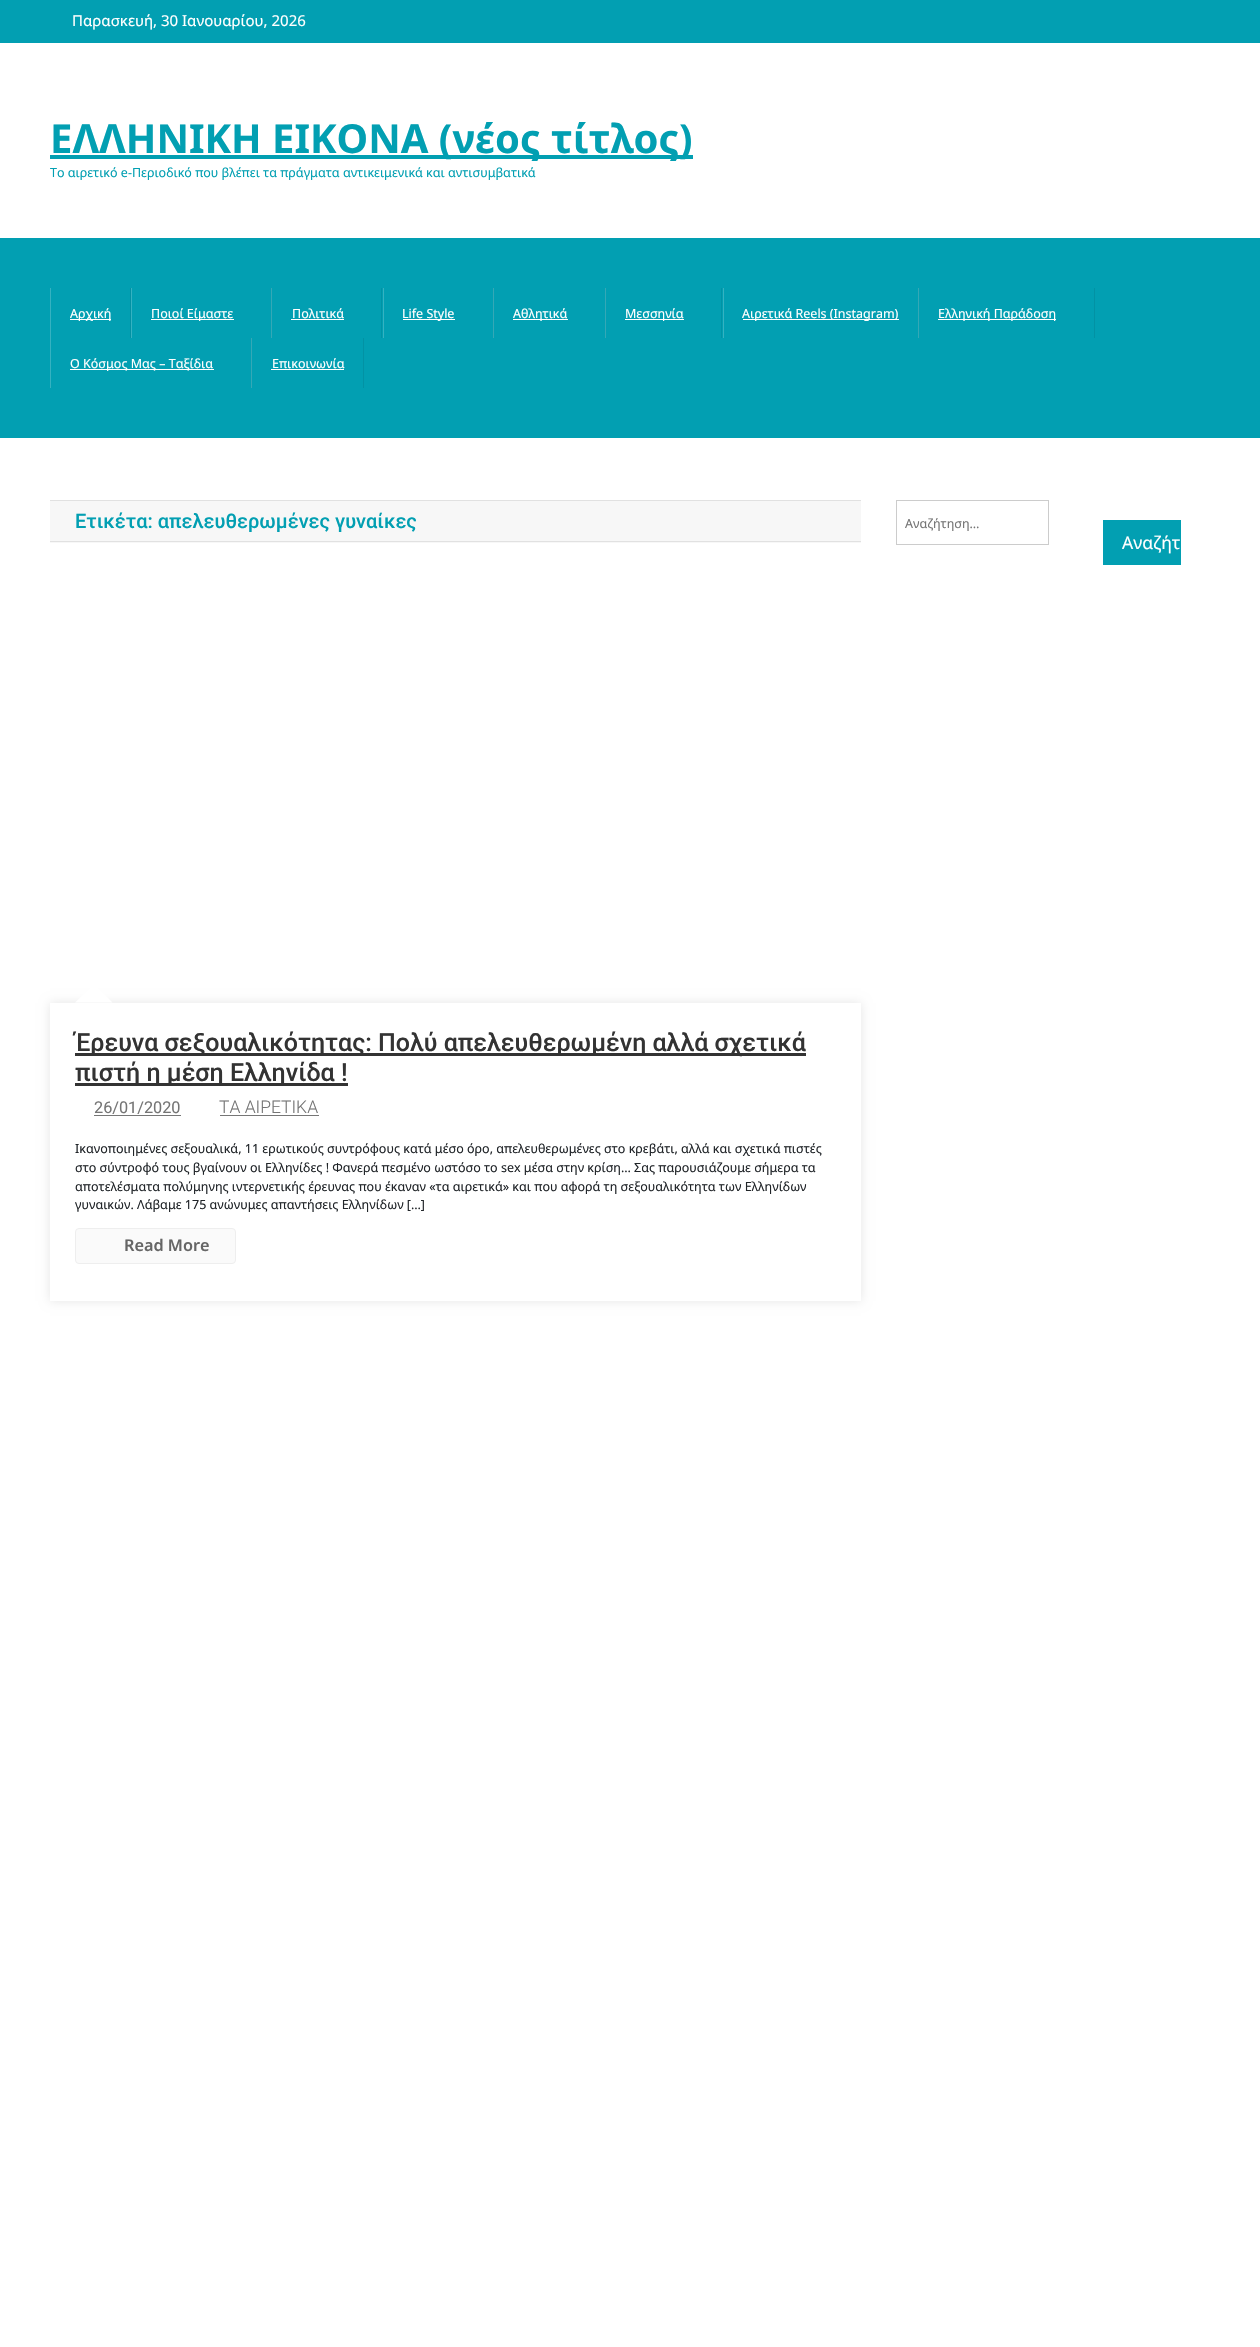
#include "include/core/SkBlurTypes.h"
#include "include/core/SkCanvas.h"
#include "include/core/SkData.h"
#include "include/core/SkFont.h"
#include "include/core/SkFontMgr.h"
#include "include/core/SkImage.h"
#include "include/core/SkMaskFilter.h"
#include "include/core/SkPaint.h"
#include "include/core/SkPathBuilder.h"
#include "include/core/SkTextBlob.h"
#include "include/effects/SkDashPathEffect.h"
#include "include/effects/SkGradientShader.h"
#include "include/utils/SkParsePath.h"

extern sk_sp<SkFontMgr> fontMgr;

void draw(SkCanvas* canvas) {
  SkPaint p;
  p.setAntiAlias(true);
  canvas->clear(SK_ColorWHITE);
  p.setColor(SkColorSetRGB(2, 159, 178));
  canvas->drawRect(SkRect::MakeLTRB(0, 0, 1260, 43), p);
  canvas->drawRect(SkRect::MakeLTRB(50, 155, 693, 159), p);
  canvas->drawRect(SkRect::MakeLTRB(0, 238, 1260, 438), p);
  p.setColor(SkColorSetRGB(2, 146, 164));
  canvas->drawRect(SkRect::MakeLTRB(130, 288, 131, 338), p);
  p.setColor(SkColorSetRGB(53, 178, 193));
  canvas->drawRect(SkRect::MakeLTRB(50, 288, 51, 388), p);
  p.setColor(SK_ColorWHITE);
  canvas->drawRect(SkRect::MakeLTRB(70, 319, 111, 320), p);
  p.setColor(SkColorSetRGB(53, 178, 193));
  canvas->drawRect(SkRect::MakeLTRB(131, 288, 132, 338), p);
  p.setColor(SK_ColorWHITE);
  canvas->drawRect(SkRect::MakeLTRB(151, 319, 234, 320), p);
  p.setColor(SkColorSetRGB(2, 146, 164));
  canvas->drawRect(SkRect::MakeLTRB(381, 288, 382, 338), p);
  p.setColor(SkColorSetRGB(53, 168, 182));
  canvas->drawRect(SkRect::MakeLTRB(271, 288, 272, 338), p);
  p.setColor(SK_ColorWHITE);
  canvas->drawRect(SkRect::MakeLTRB(291, 319, 344, 320), p);
  p.setColor(SkColorSetRGB(53, 178, 193));
  canvas->drawRect(SkRect::MakeLTRB(383, 288, 384, 338), p);
  p.setColor(SK_ColorWHITE);
  canvas->drawRect(SkRect::MakeLTRB(403, 319, 455, 320), p);
  p.setColor(SkColorSetRGB(53, 168, 182));
  canvas->drawRect(SkRect::MakeLTRB(493, 288, 494, 338), p);
  p.setColor(SK_ColorWHITE);
  canvas->drawRect(SkRect::MakeLTRB(513, 319, 568, 320), p);
  p.setColor(SkColorSetRGB(2, 146, 164));
  canvas->drawRect(SkRect::MakeLTRB(721, 288, 722, 338), p);
  p.setColor(SkColorSetRGB(53, 168, 182));
  canvas->drawRect(SkRect::MakeLTRB(605, 288, 606, 338), p);
  p.setColor(SK_ColorWHITE);
  canvas->drawRect(SkRect::MakeLTRB(625, 319, 684, 320), p);
  p.setColor(SkColorSetRGB(53, 178, 193));
  canvas->drawRect(SkRect::MakeLTRB(723, 288, 724, 338), p);
  p.setColor(SK_ColorWHITE);
  canvas->drawRect(SkRect::MakeLTRB(743, 319, 899, 320), p);
  p.setColor(SkColorSetRGB(2, 146, 164));
  canvas->drawRect(SkRect::MakeLTRB(1094, 288, 1095, 338), p);
  p.setColor(SkColorSetRGB(53, 168, 182));
  canvas->drawRect(SkRect::MakeLTRB(918, 288, 919, 338), p);
  p.setColor(SK_ColorWHITE);
  canvas->drawRect(SkRect::MakeLTRB(938, 319, 1056, 320), p);
  canvas->drawRect(SkRect::MakeLTRB(70, 369, 214, 370), p);
  p.setColor(SkColorSetRGB(2, 146, 164));
  canvas->drawRect(SkRect::MakeLTRB(363, 338, 364, 388), p);
  p.setColor(SkColorSetRGB(53, 168, 182));
  canvas->drawRect(SkRect::MakeLTRB(251, 338, 252, 388), p);
  p.setColor(SK_ColorWHITE);
  canvas->drawRect(SkRect::MakeLTRB(271, 369, 344, 370), p);
  p.setColor(SkColorSetRGB(247, 247, 247));
  canvas->drawRect(SkRect::MakeLTRB(50, 501, 861, 543), p);
  p.setColor(SkColorSetRGB(225, 225, 225));
  canvas->drawRect(SkRect::MakeLTRB(50, 500, 861, 501), p);
  canvas->drawRect(SkRect::MakeLTRB(50, 541, 861, 542), p);
  canvas->save();
  canvas->clipPath(SkPathBuilder(SkPathFillType::kEvenOdd).moveTo(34, 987).lineTo(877, 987).lineTo(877, 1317).lineTo(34, 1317).close().moveTo(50, 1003).lineTo(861, 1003).lineTo(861, 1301).lineTo(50, 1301).close().detach(), true);
  p.setColor(SkColorSetARGB(26, 0, 0, 0));
  p.setMaskFilter(SkMaskFilter::MakeBlur(kNormal_SkBlurStyle, 5));
  canvas->drawRect(SkRect::MakeLTRB(50, 1003, 861, 1301), p);
  p.setMaskFilter(nullptr);
  canvas->restore();
  p.setColor(SK_ColorWHITE);
  canvas->drawPath(SkPathBuilder().moveTo(112.5f, 1002.5f).lineTo(75, 1002.5f).lineTo(94, 984).close().detach(), p);
  p.setColor(SkColorSetRGB(51, 51, 51));
  canvas->drawRect(SkRect::MakeLTRB(75, 1053, 806, 1056), p);
  canvas->drawRect(SkRect::MakeLTRB(75, 1083, 348, 1086), p);
  p.setColor(SkColorSetRGB(118, 118, 118));
  canvas->drawRect(SkRect::MakeLTRB(94, 1115, 181, 1116), p);
  canvas->drawRect(SkRect::MakeLTRB(220, 1115, 319, 1116), p);
  p.setColor(SkColorSetRGB(250, 250, 250));
  canvas->drawRoundRect(SkRect::MakeLTRB(75.5f, 1228.5f, 235.5f, 1263.5f), 3.5f, 3.5f, p);
  p.setStyle(SkPaint::kStroke_Style);
  p.setStrokeWidth(1);
  p.setColor(SkColorSetRGB(238, 238, 238));
  canvas->drawRoundRect(SkRect::MakeLTRB(75.5f, 1228.5f, 235.5f, 1263.5f), 3.5f, 3.5f, p);
  p.setColor(SkColorSetRGB(204, 204, 204));
  canvas->drawRect(SkRect::MakeLTRB(896.5f, 500.5f, 1048.5f, 544.5f), p);
  p.setStyle(SkPaint::kFill_Style);
  p.setColor(SkColorSetRGB(2, 159, 178));
  canvas->drawRect(SkRect::MakeLTRB(1103, 520, 1181, 565), p);
  SkFont font1(fontMgr->matchFamilyStyle("Noto Sans", SkFontStyle::Normal()), 15);
  font1.setSubpixel(true);
  p.setColor(SK_ColorWHITE);
  canvas->drawString("Παρασκευή, 30 Ιανουαρίου, 2026", 72, 26, font1, p);
  SkFont font2(fontMgr->matchFamilyStyle("Noto Sans", SkFontStyle::Bold()), 40);
  font2.setSubpixel(true);
  p.setColor(SkColorSetRGB(2, 159, 178));
  canvas->drawString("ΕΛΛΗΝΙΚΗ ΕΙΚΟΝΑ (νέος τίτλος)", 50, 153, font2, p);
  SkFont font3(fontMgr->matchFamilyStyle("Noto Sans", SkFontStyle::Normal()), 12.5f);
  font3.setSubpixel(true);
  canvas->drawString("Το αιρετικό e-Περιοδικό που βλέπει τα πράγματα αντικειμενικά και αντισυμβατικά", 50, 177, font3, p);
  p.setColor(SK_ColorWHITE);
  canvas->drawString("Αρχική", 70, 318, font3, p);
  canvas->drawString("Ποιοί Είμαστε", 151, 318, font3, p);
  canvas->drawString("Πολιτικά", 292, 318, font3, p);
  canvas->drawString("Life Style", 402, 318, font3, p);
  canvas->drawString("Aθλητικά", 513, 318, font3, p);
  canvas->drawString("Μεσσηνία", 625, 318, font3, p);
  canvas->drawString("Αιρετικά Reels (Instagram)", 742, 318, font3, p);
  canvas->drawString("Ελληνική Παράδοση", 938, 318, font3, p);
  canvas->drawString("O Κόσμος Μας – Ταξίδια", 70, 368, font3, p);
  canvas->drawString("Επικοινωνία", 272, 368, font3, p);
  SkFont font4(fontMgr->matchFamilyStyle("Roboto", SkFontStyle(500, SkFontStyle::kNormal_Width, SkFontStyle::kUpright_Slant)), 20);
  font4.setSubpixel(true);
  p.setColor(SkColorSetRGB(2, 159, 178));
  canvas->drawString("Ετικέτα: απελευθερωμένες γυναίκες", 75, 528, font4, p);
  SkFont font5(fontMgr->matchFamilyStyle("Roboto", SkFontStyle(500, SkFontStyle::kNormal_Width, SkFontStyle::kUpright_Slant)), 25);
  font5.setSubpixel(true);
  p.setColor(SkColorSetRGB(51, 51, 51));
  canvas->drawString("Έρευνα σεξουαλικότητας: Πολύ απελευθερωμένη αλλά σχετικά", 75, 1051, font5, p);
  canvas->drawString("πιστή η μέση Ελληνίδα !", 75, 1081, font5, p);
  SkFont font6(fontMgr->matchFamilyStyle("Roboto", SkFontStyle::Normal()), 16.25f);
  font6.setSubpixel(true);
  p.setColor(SkColorSetRGB(117, 117, 117));
  canvas->drawString("26/01/2020", 94, 1113, font6, p);
  SkFont font7(fontMgr->matchFamilyStyle("Roboto", SkFontStyle(300, SkFontStyle::kNormal_Width, SkFontStyle::kUpright_Slant)), 17.5f);
  font7.setSubpixel(true);
  canvas->drawString("ΤΑ ΑΙΡΕΤΙΚΑ", 219, 1113, font7, p);
  p.setColor(SkColorSetRGB(33, 37, 41));
  canvas->drawString("Ικανοποιημένες σεξουαλικά, 11 ερωτικούς συντρόφους κατά μέσο όρο, απελευθερωμένες στο κρεβάτι, αλλά και σχετικά πιστές", 75, 1153, font3, p);
  canvas->drawString("στο σύντροφό τους βγαίνουν οι Ελληνίδες ! Φανερά πεσμένο ωστόσο το sex μέσα στην κρίση… Σας παρουσιάζουμε σήμερα τα", 75, 1172, font3, p);
  canvas->drawString("αποτελέσματα πολύμηνης ιντερνετικής έρευνας που έκαναν «τα αιρετικά» και που αφορά τη σεξουαλικότητα των Ελληνίδων", 75, 1191, font3, p);
  canvas->drawString("γυναικών. Λάβαμε 175 ανώνυμες απαντήσεις Ελληνίδων […]", 75, 1209, font3, p);
  SkFont font8(fontMgr->matchFamilyStyle("Noto Sans", SkFontStyle(600, SkFontStyle::kNormal_Width, SkFontStyle::kUpright_Slant)), 16.25f);
  font8.setSubpixel(true);
  p.setColor(SkColorSetRGB(102, 102, 102));
  canvas->drawString("Read More", 124, 1251, font8, p);
  p.setColor(SkColorSetRGB(117, 117, 117));
  canvas->drawString("Αναζήτηση…", 905, 528, font3, p);
  SkFont font9(fontMgr->matchFamilyStyle("Noto Sans", SkFontStyle::Normal()), 17.5f);
  font9.setSubpixel(true);
  p.setColor(SK_ColorWHITE);
  canvas->drawString("Αναζήτ", 1122, 549, font9, p);
}
